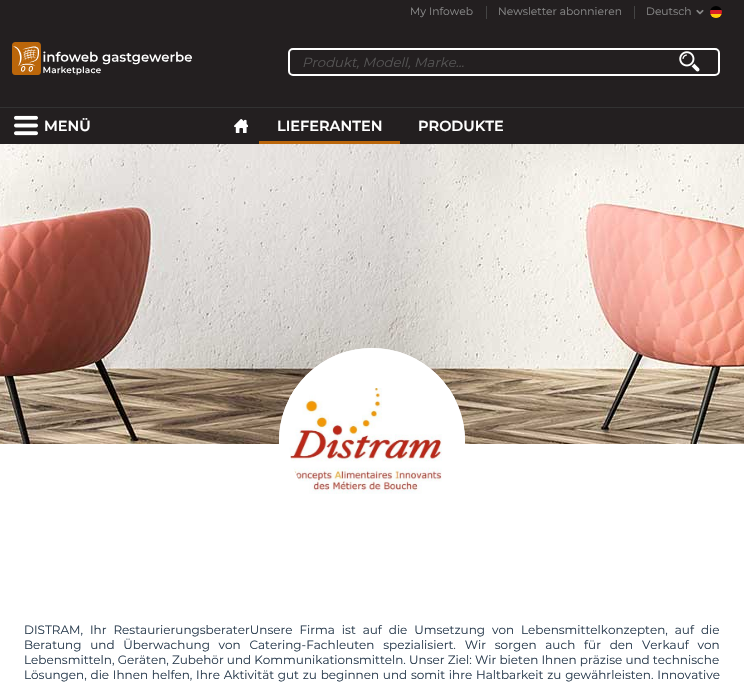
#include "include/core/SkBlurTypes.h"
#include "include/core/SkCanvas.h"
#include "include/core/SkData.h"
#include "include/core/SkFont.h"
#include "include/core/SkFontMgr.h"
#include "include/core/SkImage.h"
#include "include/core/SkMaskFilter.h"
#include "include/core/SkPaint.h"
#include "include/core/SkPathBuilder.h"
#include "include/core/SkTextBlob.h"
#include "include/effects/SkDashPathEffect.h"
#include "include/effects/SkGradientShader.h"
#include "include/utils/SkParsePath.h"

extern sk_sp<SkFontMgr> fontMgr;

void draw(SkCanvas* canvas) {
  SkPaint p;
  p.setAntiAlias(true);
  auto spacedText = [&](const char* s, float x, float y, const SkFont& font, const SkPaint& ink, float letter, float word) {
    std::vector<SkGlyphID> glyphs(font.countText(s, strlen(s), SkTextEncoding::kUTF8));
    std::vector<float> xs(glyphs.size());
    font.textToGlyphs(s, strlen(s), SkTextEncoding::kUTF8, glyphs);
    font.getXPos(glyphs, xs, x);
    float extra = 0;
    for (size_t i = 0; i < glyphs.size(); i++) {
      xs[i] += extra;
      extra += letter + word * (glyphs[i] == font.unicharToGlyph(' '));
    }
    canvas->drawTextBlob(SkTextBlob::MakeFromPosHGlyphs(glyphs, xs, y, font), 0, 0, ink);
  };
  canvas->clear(SK_ColorWHITE);
  p.setColor(SkColorSetRGB(35, 31, 32));
  canvas->drawRect(SkRect::MakeLTRB(0, 0, 744, 107), p);
  p.setColor(SkColorSetRGB(50, 50, 50));
  canvas->drawRect(SkRect::MakeLTRB(0, 107, 744, 108), p);
  p.setColor(SkColorSetRGB(68, 68, 68));
  canvas->drawRect(SkRect::MakeLTRB(486, 6, 487, 19), p);
  canvas->drawRect(SkRect::MakeLTRB(634, 6, 635, 19), p);
  canvas->drawImageRect(SkImages::DeferredFromEncodedData(SkData::MakeFromFileName("images/1.png")), SkRect::MakeLTRB(710, 6, 722, 18), SkSamplingOptions());
  canvas->drawImageRect(SkImages::DeferredFromEncodedData(SkData::MakeFromFileName("images/2.png")), SkRect::MakeLTRB(696, 9, 704, 15), SkSamplingOptions());
  canvas->drawImageRect(SkImages::DeferredFromEncodedData(SkData::MakeFromFileName("images/3.png")), SkRect::MakeLTRB(12, 42, 192, 75), SkSamplingOptions());
  p.setStyle(SkPaint::kStroke_Style);
  p.setStrokeWidth(2);
  p.setColor(SK_ColorWHITE);
  canvas->drawRoundRect(SkRect::MakeLTRB(289, 49, 719, 75), 4, 4, p);
  canvas->drawImageRect(SkImages::DeferredFromEncodedData(SkData::MakeFromFileName("images/4.png")), SkRect::MakeLTRB(679, 51, 700, 72), SkSamplingOptions());
  p.setStyle(SkPaint::kFill_Style);
  p.setColor(SkColorSetRGB(35, 31, 32));
  canvas->drawRect(SkRect::MakeLTRB(0, 108, 744, 144), p);
  canvas->drawImageRect(SkImages::DeferredFromEncodedData(SkData::MakeFromFileName("images/5.png")), SkRect::MakeLTRB(14, 115, 38, 136), SkSamplingOptions());
  canvas->drawImageRect(SkImages::DeferredFromEncodedData(SkData::MakeFromFileName("images/6.png")), SkRect::MakeLTRB(234, 119, 248, 133), SkSamplingOptions());
  p.setColor(SkColorSetRGB(187, 102, 10));
  canvas->drawRect(SkRect::MakeLTRB(259, 141, 400, 144), p);
  canvas->drawImageRect(SkImages::DeferredFromEncodedData(SkData::MakeFromFileName("images/7.png")), SkRect::MakeLTRB(0, 144, 744, 444), SkSamplingOptions());
  p.setColor(SK_ColorWHITE);
  canvas->drawCircle(372, 441, 93, p);
  canvas->drawImageRect(SkImages::DeferredFromEncodedData(SkData::MakeFromFileName("images/8.png")), SkRect::MakeLTRB(289, 388, 455, 494), SkSamplingOptions());
  p.setStyle(SkPaint::kStroke_Style);
  p.setStrokeWidth(10);
  canvas->drawCircle(372, 441, 88, p);
  SkFont font1(fontMgr->matchFamilyStyle("Montserrat", SkFontStyle::Normal()), 10.75f);
  font1.setSubpixel(true);
  p.setStyle(SkPaint::kFill_Style);
  p.setColor(SkColorSetRGB(136, 136, 136));
  canvas->drawString("My Infoweb", 410, 15, font1, p);
  canvas->drawString("Newsletter abonnieren", 498, 15, font1, p);
  canvas->drawString("Deutsch", 646, 15, font1, p);
  SkFont font2(fontMgr->matchFamilyStyle("Montserrat", SkFontStyle::Italic()), 13.25f);
  font2.setSubpixel(true);
  p.setColor(SkColorSetRGB(84, 83, 83));
  canvas->drawString("Produkt, Modell, Marke...", 302, 67, font2, p);
  SkFont font3(fontMgr->matchFamilyStyle("Montserrat", SkFontStyle(600, SkFontStyle::kNormal_Width, SkFontStyle::kUpright_Slant)), 14.5f);
  font3.setSubpixel(true);
  p.setColor(SK_ColorWHITE);
  canvas->drawString("MENÜ", 44, 131, font3, p);
  canvas->drawString("LIEFERANTEN", 277, 131, font3, p);
  canvas->drawString("PRODUKTE", 418, 131, font3, p);
  SkFont font4(fontMgr->matchFamilyStyle("Montserrat", SkFontStyle::Normal()), 12);
  font4.setSubpixel(true);
  p.setColor(SkColorSetRGB(44, 62, 80));
  spacedText("DISTRAM, Ihr RestaurierungsberaterUnsere Firma ist auf die Umsetzung von Lebensmittelkonzepten, auf die", 24, 634, font4, p, 0, 3.75f);
  spacedText("Beratung und Überwachung von Catering-Fachleuten spezialisiert. Wir sorgen auch für den Verkauf von", 24, 649, font4, p, 0, 5.6f);
  canvas->drawString("Lebensmitteln, Geräten, Zubehör und Kommunikationsmitteln. Unser Ziel: Wir bieten Ihnen präzise und technische", 24, 664, font4, p);
  spacedText("Lösungen, die Ihnen helfen, Ihre Aktivität gut zu beginnen und somit ihre Haltbarkeit zu gewährleisten. Innovative", 24, 679, font4, p, 0, 0.6f);
}
